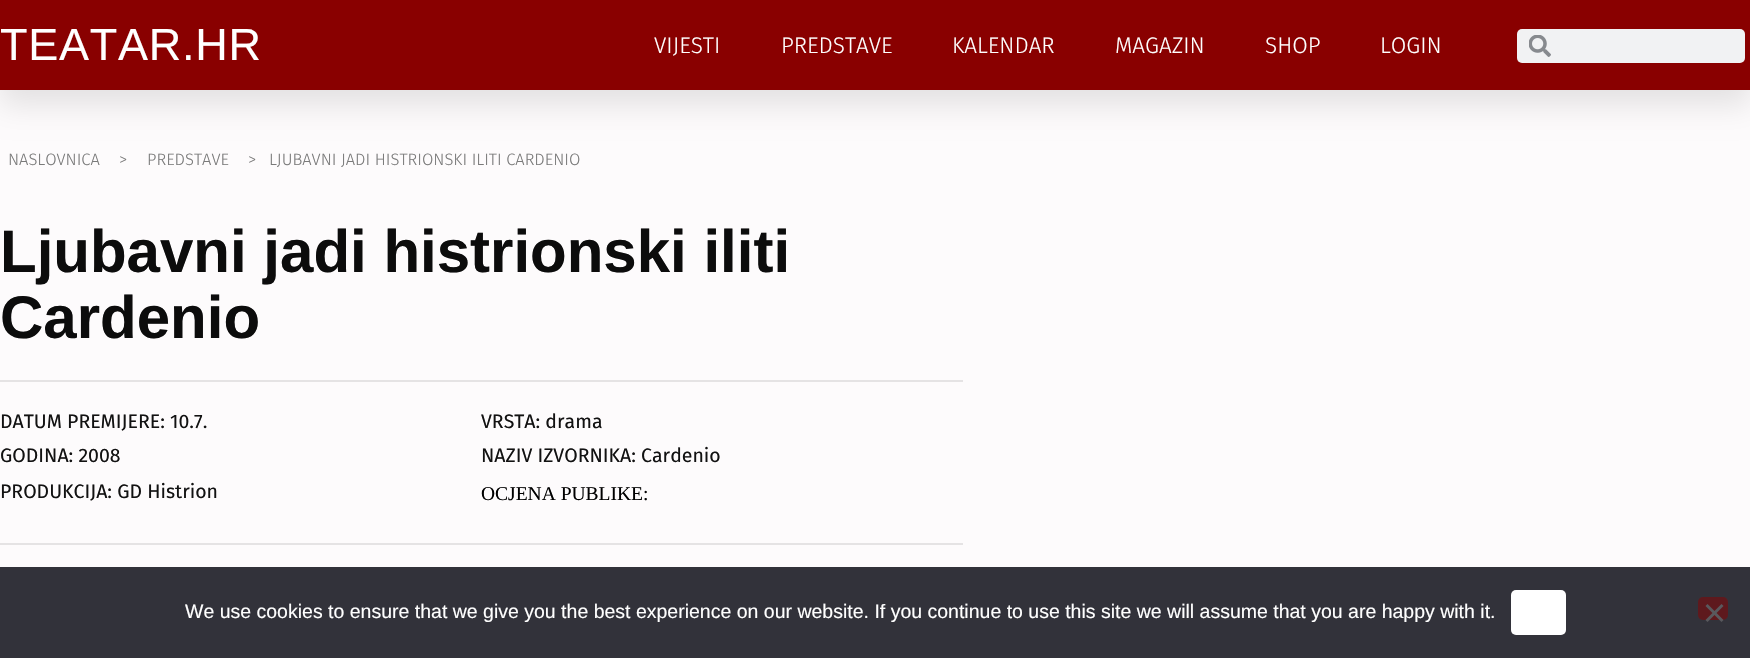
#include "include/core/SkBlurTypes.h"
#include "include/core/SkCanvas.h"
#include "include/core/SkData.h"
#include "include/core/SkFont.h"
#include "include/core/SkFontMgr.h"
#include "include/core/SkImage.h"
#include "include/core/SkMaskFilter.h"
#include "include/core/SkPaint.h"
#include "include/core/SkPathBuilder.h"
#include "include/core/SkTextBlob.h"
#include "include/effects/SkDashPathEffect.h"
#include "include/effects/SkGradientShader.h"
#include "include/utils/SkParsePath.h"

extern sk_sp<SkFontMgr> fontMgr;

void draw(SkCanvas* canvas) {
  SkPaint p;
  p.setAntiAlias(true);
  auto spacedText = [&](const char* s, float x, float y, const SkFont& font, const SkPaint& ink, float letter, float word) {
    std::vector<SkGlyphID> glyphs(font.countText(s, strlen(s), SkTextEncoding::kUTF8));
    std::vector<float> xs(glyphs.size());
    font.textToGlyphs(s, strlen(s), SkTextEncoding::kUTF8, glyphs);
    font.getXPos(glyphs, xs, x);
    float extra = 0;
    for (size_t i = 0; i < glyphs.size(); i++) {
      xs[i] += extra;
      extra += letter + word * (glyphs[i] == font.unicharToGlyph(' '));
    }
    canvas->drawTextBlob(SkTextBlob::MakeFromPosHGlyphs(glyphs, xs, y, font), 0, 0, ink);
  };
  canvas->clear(SkColorSetRGB(253, 251, 252));
  p.setColor(SkColorSetARGB(26, 0, 0, 0));
  p.setMaskFilter(SkMaskFilter::MakeBlur(kNormal_SkBlurStyle, 15));
  canvas->drawRect(SkRect::MakeLTRB(0, 15, 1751, 105), p);
  p.setMaskFilter(nullptr);
  p.setColor(SkColorSetRGB(137, 0, 0));
  canvas->drawRect(SkRect::MakeLTRB(0, 0, 1750, 90), p);
  p.setColor(SkColorSetRGB(241, 242, 243));
  canvas->drawRoundRect(SkRect::MakeLTRB(1517, 29, 1745, 63), 5, 5, p);
  canvas->drawImageRect(SkImages::DeferredFromEncodedData(SkData::MakeFromFileName("images/1.png")), SkRect::MakeLTRB(1529, 35, 1551, 57), SkSamplingOptions());
  p.setColor(SkColorSetRGB(229, 227, 228));
  canvas->drawRect(SkRect::MakeLTRB(0, 380, 963, 382), p);
  canvas->drawRect(SkRect::MakeLTRB(0, 543, 963, 545), p);
  p.setColor(SkColorSetRGB(50, 50, 58));
  canvas->drawRect(SkRect::MakeLTRB(0, 567, 1750, 658), p);
  p.setColor(SK_ColorWHITE);
  canvas->drawRoundRect(SkRect::MakeLTRB(1511, 590, 1566, 635), 5, 5, p);
  p.setColor(SkColorSetRGB(94, 25, 29));
  canvas->drawRoundRect(SkRect::MakeLTRB(1698, 597, 1728, 620), 5, 5, p);
  p.setColor(SkColorSetRGB(89, 89, 93));
  canvas->drawPath(SkPathBuilder().moveTo(1721.5f, 604).lineTo(1723.5f, 606).lineTo(1707.5f, 622).lineTo(1705.5f, 620).close().detach(), p);
  canvas->drawPath(SkPathBuilder().moveTo(1705.5f, 606).lineTo(1707.5f, 604).lineTo(1723.5f, 620).lineTo(1721.5f, 622).close().detach(), p);
  SkFont font1(fontMgr->matchFamilyStyle("Liberation Sans", SkFontStyle::Normal()), 45);
  font1.setSubpixel(true);
  p.setColor(SK_ColorWHITE);
  spacedText("TEATAR.HR", 0, 60, font1, p, 0.75f, 0);
  SkFont font2(fontMgr->matchFamilyStyle("Fira Sans", SkFontStyle(300, SkFontStyle::kNormal_Width, SkFontStyle::kUpright_Slant)), 22.5f);
  font2.setSubpixel(true);
  canvas->drawString("VIJESTI", 654, 53, font2, p);
  canvas->drawString("PREDSTAVE", 781, 53, font2, p);
  canvas->drawString("KALENDAR", 952, 53, font2, p);
  canvas->drawString("MAGAZIN", 1115, 53, font2, p);
  canvas->drawString("SHOP", 1265, 53, font2, p);
  canvas->drawString("LOGIN", 1380, 53, font2, p);
  SkFont font3(fontMgr->matchFamilyStyle("Fira Sans", SkFontStyle(300, SkFontStyle::kNormal_Width, SkFontStyle::kUpright_Slant)), 16.5f);
  font3.setSubpixel(true);
  p.setColor(SkColorSetRGB(122, 122, 122));
  canvas->drawString("NASLOVNICA", 8, 165, font3, p);
  canvas->drawString(">", 119, 165, font3, p);
  canvas->drawString("PREDSTAVE", 147, 165, font3, p);
  canvas->drawString(">", 248, 165, font3, p);
  canvas->drawString("LJUBAVNI JADI HISTRIONSKI ILITI CARDENIO", 269, 165, font3, p);
  SkFont font4(fontMgr->matchFamilyStyle("Liberation Sans", SkFontStyle::Bold()), 60);
  font4.setSubpixel(true);
  p.setColor(SkColorSetRGB(12, 12, 12));
  canvas->drawString("Ljubavni jadi histrionski iliti", 0, 272, font4, p);
  canvas->drawString("Cardenio", 0, 338, font4, p);
  SkFont font5(fontMgr->matchFamilyStyle("Fira Sans", SkFontStyle::Normal()), 19.5f);
  font5.setSubpixel(true);
  p.setColor(SkColorSetRGB(18, 18, 18));
  canvas->drawString("DATUM PREMIJERE: 10.7.", 0, 428, font5, p);
  canvas->drawString("GODINA: 2008", 0, 462, font5, p);
  canvas->drawString("PRODUKCIJA: GD Histrion", 0, 498, font5, p);
  canvas->drawString("VRSTA: drama", 481, 428, font5, p);
  canvas->drawString("NAZIV IZVORNIKA: Cardenio", 481, 462, font5, p);
  SkFont font6(fontMgr->matchFamilyStyle("Liberation Serif", SkFontStyle::Normal()), 19.5f);
  font6.setSubpixel(true);
  p.setColor(SK_ColorBLACK);
  canvas->drawString("OCJENA PUBLIKE:", 481, 500, font6, p);
  SkFont font7(fontMgr->matchFamilyStyle("Liberation Sans", SkFontStyle::Normal()), 19.5f);
  font7.setSubpixel(true);
  p.setColor(SK_ColorWHITE);
  canvas->drawString("We use cookies to ensure that we give you the best experience on our website. If you continue to use this site we will assume that you are happy with it.", 185, 618, font7, p);
}
